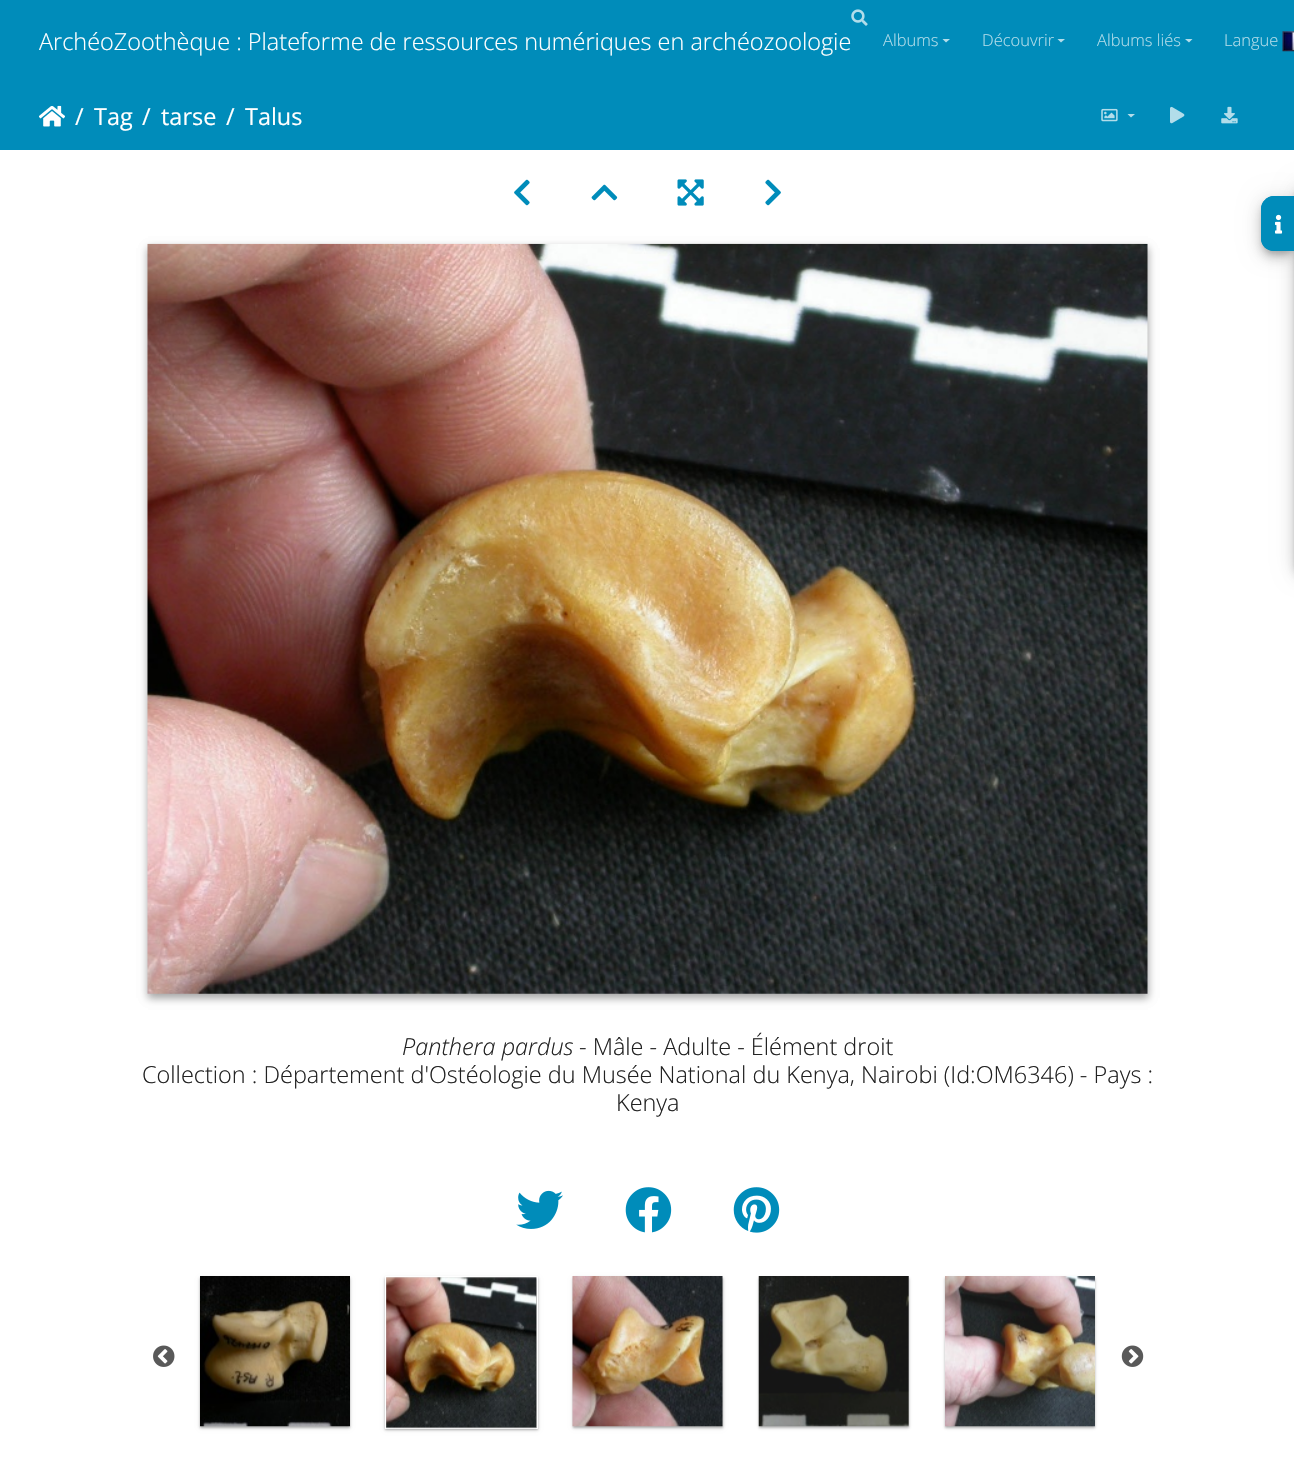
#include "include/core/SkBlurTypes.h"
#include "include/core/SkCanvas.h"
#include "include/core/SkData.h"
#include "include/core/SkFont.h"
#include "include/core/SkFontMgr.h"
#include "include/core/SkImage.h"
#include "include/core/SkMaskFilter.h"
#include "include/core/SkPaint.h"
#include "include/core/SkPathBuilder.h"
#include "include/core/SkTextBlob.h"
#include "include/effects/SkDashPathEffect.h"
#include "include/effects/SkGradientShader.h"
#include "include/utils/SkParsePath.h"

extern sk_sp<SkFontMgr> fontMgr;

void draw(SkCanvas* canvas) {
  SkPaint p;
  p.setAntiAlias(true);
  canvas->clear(SK_ColorWHITE);
  p.setColor(SkColorSetRGB(0, 140, 186));
  canvas->drawRect(SkRect::MakeLTRB(0, 0, 1294, 150), p);
  canvas->drawImageRect(SkImages::DeferredFromEncodedData(SkData::MakeFromFileName("images/1.png")), SkRect::MakeLTRB(851, 9, 868, 26), SkSamplingOptions());
  p.setColor(SkColorSetRGB(179, 221, 234));
  canvas->drawPath(SkPathBuilder().moveTo(942.5f, 39).lineTo(950, 39).lineTo(946, 42.5f).close().detach(), p);
  canvas->drawPath(SkPathBuilder().moveTo(1057.5f, 39).lineTo(1065, 39).lineTo(1061, 42.5f).close().detach(), p);
  canvas->drawPath(SkPathBuilder().moveTo(1185, 39).lineTo(1192.5f, 39).lineTo(1189, 42.5f).close().detach(), p);
  canvas->drawImageRect(SkImages::DeferredFromEncodedData(SkData::MakeFromFileName("images/2.png")), SkRect::MakeLTRB(1282, 31, 1294, 52), SkSamplingOptions());
  canvas->drawImageRect(SkImages::DeferredFromEncodedData(SkData::MakeFromFileName("images/3.png")), SkRect::MakeLTRB(39, 105, 65, 127), SkSamplingOptions());
  canvas->drawImageRect(SkImages::DeferredFromEncodedData(SkData::MakeFromFileName("images/4.png")), SkRect::MakeLTRB(1101, 108, 1118, 122), SkSamplingOptions());
  canvas->drawPath(SkPathBuilder().moveTo(1127.5f, 114).lineTo(1135, 114).lineTo(1131, 117.5f).close().detach(), p);
  canvas->drawImageRect(SkImages::DeferredFromEncodedData(SkData::MakeFromFileName("images/5.png")), SkRect::MakeLTRB(1170, 106, 1185, 124), SkSamplingOptions());
  canvas->drawImageRect(SkImages::DeferredFromEncodedData(SkData::MakeFromFileName("images/6.png")), SkRect::MakeLTRB(1221, 106, 1238, 124), SkSamplingOptions());
  canvas->drawImageRect(SkImages::DeferredFromEncodedData(SkData::MakeFromFileName("images/7.png")), SkRect::MakeLTRB(514, 179, 530, 206), SkSamplingOptions());
  canvas->drawImageRect(SkImages::DeferredFromEncodedData(SkData::MakeFromFileName("images/8.png")), SkRect::MakeLTRB(591, 184, 618, 201), SkSamplingOptions());
  canvas->drawImageRect(SkImages::DeferredFromEncodedData(SkData::MakeFromFileName("images/9.png")), SkRect::MakeLTRB(677, 179, 704, 206), SkSamplingOptions());
  canvas->drawImageRect(SkImages::DeferredFromEncodedData(SkData::MakeFromFileName("images/10.png")), SkRect::MakeLTRB(765, 179, 781, 206), SkSamplingOptions());
  p.setColor(SkColorSetARGB(51, 0, 0, 0));
  p.setMaskFilter(SkMaskFilter::MakeBlur(kNormal_SkBlurStyle, 3));
  canvas->drawRoundRect(SkRect::MakeLTRB(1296, 189, 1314, 575), 11, 11, p);
  p.setMaskFilter(nullptr);
  p.setColor(SkColorSetARGB(31, 0, 0, 0));
  p.setMaskFilter(SkMaskFilter::MakeBlur(kNormal_SkBlurStyle, 11));
  canvas->drawRoundRect(SkRect::MakeLTRB(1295, 185, 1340, 574), 13, 13, p);
  p.setMaskFilter(nullptr);
  p.setColor(SkColorSetARGB(36, 0, 0, 0));
  p.setMaskFilter(SkMaskFilter::MakeBlur(kNormal_SkBlurStyle, 6));
  canvas->drawRoundRect(SkRect::MakeLTRB(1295, 191, 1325, 580), 13, 13, p);
  p.setMaskFilter(nullptr);
  p.setColor(SkColorSetARGB(51, 0, 0, 0));
  p.setMaskFilter(SkMaskFilter::MakeBlur(kNormal_SkBlurStyle, 3));
  canvas->drawRoundRect(SkRect::MakeLTRB(1263, 201, 1294, 254), 11, 11, p);
  p.setMaskFilter(nullptr);
  p.setColor(SkColorSetARGB(31, 0, 0, 0));
  p.setMaskFilter(SkMaskFilter::MakeBlur(kNormal_SkBlurStyle, 11));
  canvas->drawRoundRect(SkRect::MakeLTRB(1261, 198, 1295, 253), 13, 13, p);
  p.setMaskFilter(nullptr);
  p.setColor(SkColorSetARGB(36, 0, 0, 0));
  p.setMaskFilter(SkMaskFilter::MakeBlur(kNormal_SkBlurStyle, 6));
  canvas->drawRoundRect(SkRect::MakeLTRB(1261, 204, 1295, 259), 13, 13, p);
  p.setMaskFilter(nullptr);
  p.setColor(SkColorSetRGB(0, 140, 186));
  canvas->drawPath(SkPathBuilder().moveTo(1274, 196).lineTo(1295, 196).lineTo(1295, 251).lineTo(1274, 251).cubicTo(1267, 251, 1261, 245, 1261, 238).lineTo(1261, 209).cubicTo(1261, 202, 1267, 196, 1274, 196).close().detach(), p);
  canvas->drawPath(SkPathBuilder(SkPathFillType::kEvenOdd).moveTo(1274, 196).lineTo(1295, 196).lineTo(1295, 251).lineTo(1274, 251).cubicTo(1267, 251, 1261, 246, 1261, 239).lineTo(1261, 209).cubicTo(1261, 202, 1267, 196, 1274, 196).close().moveTo(1274, 198).lineTo(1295, 198).lineTo(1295, 250).lineTo(1274, 250).cubicTo(1268, 250, 1262, 245, 1262, 239).lineTo(1262, 209).cubicTo(1262, 203, 1268, 198, 1274, 198).close().detach(), p);
  canvas->drawImageRect(SkImages::DeferredFromEncodedData(SkData::MakeFromFileName("images/11.png")), SkRect::MakeLTRB(1275, 214, 1283, 234), SkSamplingOptions());
  p.setColor(SkColorSetARGB(59, 0, 0, 0));
  p.setMaskFilter(SkMaskFilter::MakeBlur(kNormal_SkBlurStyle, 4));
  canvas->drawRect(SkRect::MakeLTRB(148, 248, 1148, 998), p);
  p.setMaskFilter(nullptr);
  p.setColor(SkColorSetARGB(41, 0, 0, 0));
  p.setMaskFilter(SkMaskFilter::MakeBlur(kNormal_SkBlurStyle, 4));
  canvas->drawRect(SkRect::MakeLTRB(148, 248, 1148, 998), p);
  p.setMaskFilter(nullptr);
  canvas->drawImageRect(SkImages::DeferredFromEncodedData(SkData::MakeFromFileName("images/12.png")), SkRect::MakeLTRB(147, 243, 1148, 994), SkSamplingOptions());
  canvas->drawImageRect(SkImages::DeferredFromEncodedData(SkData::MakeFromFileName("images/13.png")), SkRect::MakeLTRB(516, 1190, 563, 1229), SkSamplingOptions());
  canvas->drawImageRect(SkImages::DeferredFromEncodedData(SkData::MakeFromFileName("images/14.png")), SkRect::MakeLTRB(625, 1187, 672, 1233), SkSamplingOptions());
  canvas->drawImageRect(SkImages::DeferredFromEncodedData(SkData::MakeFromFileName("images/15.png")), SkRect::MakeLTRB(733, 1187, 780, 1233), SkSamplingOptions());
  canvas->drawImageRect(SkImages::DeferredFromEncodedData(SkData::MakeFromFileName("images/16.png")), SkRect::MakeLTRB(153, 1345, 175, 1367), SkSamplingOptions());
  p.setColor(SkColorSetARGB(31, 0, 0, 0));
  p.setMaskFilter(SkMaskFilter::MakeBlur(kNormal_SkBlurStyle, 2));
  canvas->drawRect(SkRect::MakeLTRB(200, 1278, 350, 1428), p);
  p.setMaskFilter(nullptr);
  p.setColor(SkColorSetARGB(61, 0, 0, 0));
  p.setMaskFilter(SkMaskFilter::MakeBlur(kNormal_SkBlurStyle, 1));
  canvas->drawRect(SkRect::MakeLTRB(200, 1278, 350, 1428), p);
  p.setMaskFilter(nullptr);
  canvas->drawImageRect(SkImages::DeferredFromEncodedData(SkData::MakeFromFileName("images/17.png")), SkRect::MakeLTRB(200, 1276, 350, 1427), SkSamplingOptions());
  p.setColor(SkColorSetARGB(31, 0, 0, 0));
  p.setMaskFilter(SkMaskFilter::MakeBlur(kNormal_SkBlurStyle, 2));
  canvas->drawRect(SkRect::MakeLTRB(385, 1278, 538, 1430), p);
  p.setMaskFilter(nullptr);
  p.setColor(SkColorSetARGB(61, 0, 0, 0));
  p.setMaskFilter(SkMaskFilter::MakeBlur(kNormal_SkBlurStyle, 1));
  canvas->drawRect(SkRect::MakeLTRB(385, 1278, 538, 1430), p);
  p.setMaskFilter(nullptr);
  p.setStyle(SkPaint::kStroke_Style);
  p.setStrokeWidth(1);
  p.setColor(SK_ColorWHITE);
  canvas->drawRect(SkRect::MakeLTRB(385.5f, 1276.5f, 537.5f, 1428.5f), p);
  canvas->drawImageRect(SkImages::DeferredFromEncodedData(SkData::MakeFromFileName("images/18.png")), SkRect::MakeLTRB(386, 1277, 537, 1429), SkSamplingOptions());
  p.setStyle(SkPaint::kFill_Style);
  p.setColor(SkColorSetARGB(31, 0, 0, 0));
  p.setMaskFilter(SkMaskFilter::MakeBlur(kNormal_SkBlurStyle, 2));
  canvas->drawRect(SkRect::MakeLTRB(573, 1278, 723, 1428), p);
  p.setMaskFilter(nullptr);
  p.setColor(SkColorSetARGB(61, 0, 0, 0));
  p.setMaskFilter(SkMaskFilter::MakeBlur(kNormal_SkBlurStyle, 1));
  canvas->drawRect(SkRect::MakeLTRB(573, 1278, 723, 1428), p);
  p.setMaskFilter(nullptr);
  canvas->drawImageRect(SkImages::DeferredFromEncodedData(SkData::MakeFromFileName("images/19.png")), SkRect::MakeLTRB(572, 1276, 723, 1427), SkSamplingOptions());
  canvas->save();
  canvas->clipPath(SkPathBuilder(SkPathFillType::kEvenOdd).moveTo(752, 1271).lineTo(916, 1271).lineTo(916, 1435).lineTo(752, 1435).close().moveTo(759, 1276).lineTo(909, 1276).lineTo(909, 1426).lineTo(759, 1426).close().detach(), true);
  p.setColor(SkColorSetARGB(31, 21, 21, 21));
  p.setMaskFilter(SkMaskFilter::MakeBlur(kNormal_SkBlurStyle, 2));
  canvas->drawRect(SkRect::MakeLTRB(759, 1278, 909, 1428), p);
  p.setMaskFilter(nullptr);
  canvas->restore();
  canvas->save();
  canvas->clipPath(SkPathBuilder(SkPathFillType::kEvenOdd).moveTo(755, 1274).lineTo(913, 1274).lineTo(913, 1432).lineTo(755, 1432).close().moveTo(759, 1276).lineTo(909, 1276).lineTo(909, 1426).lineTo(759, 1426).close().detach(), true);
  p.setColor(SkColorSetARGB(61, 21, 21, 21));
  p.setMaskFilter(SkMaskFilter::MakeBlur(kNormal_SkBlurStyle, 1));
  canvas->drawRect(SkRect::MakeLTRB(759, 1278, 909, 1428), p);
  p.setMaskFilter(nullptr);
  canvas->restore();
  canvas->drawImageRect(SkImages::DeferredFromEncodedData(SkData::MakeFromFileName("images/20.png")), SkRect::MakeLTRB(758, 1276, 909, 1427), SkSamplingOptions());
  canvas->save();
  canvas->clipPath(SkPathBuilder(SkPathFillType::kEvenOdd).moveTo(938, 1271).lineTo(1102, 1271).lineTo(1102, 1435).lineTo(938, 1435).close().moveTo(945, 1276).lineTo(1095, 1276).lineTo(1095, 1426).lineTo(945, 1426).close().detach(), true);
  p.setColor(SkColorSetARGB(31, 21, 21, 21));
  p.setMaskFilter(SkMaskFilter::MakeBlur(kNormal_SkBlurStyle, 2));
  canvas->drawRect(SkRect::MakeLTRB(945, 1278, 1095, 1428), p);
  p.setMaskFilter(nullptr);
  canvas->restore();
  canvas->save();
  canvas->clipPath(SkPathBuilder(SkPathFillType::kEvenOdd).moveTo(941, 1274).lineTo(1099, 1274).lineTo(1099, 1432).lineTo(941, 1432).close().moveTo(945, 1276).lineTo(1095, 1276).lineTo(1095, 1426).lineTo(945, 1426).close().detach(), true);
  p.setColor(SkColorSetARGB(61, 21, 21, 21));
  p.setMaskFilter(SkMaskFilter::MakeBlur(kNormal_SkBlurStyle, 1));
  canvas->drawRect(SkRect::MakeLTRB(945, 1278, 1095, 1428), p);
  p.setMaskFilter(nullptr);
  canvas->restore();
  canvas->drawImageRect(SkImages::DeferredFromEncodedData(SkData::MakeFromFileName("images/21.png")), SkRect::MakeLTRB(945, 1276, 1095, 1427), SkSamplingOptions());
  canvas->drawImageRect(SkImages::DeferredFromEncodedData(SkData::MakeFromFileName("images/22.png")), SkRect::MakeLTRB(1121, 1345, 1144, 1367), SkSamplingOptions());
  SkFont font1(fontMgr->matchFamilyStyle("Open Sans", SkFontStyle(300, SkFontStyle::kNormal_Width, SkFontStyle::kUpright_Slant)), 23.45f);
  font1.setSubpixel(true);
  p.setColor(SK_ColorWHITE);
  canvas->drawString("ArchéoZoothèque : Plateforme de ressources numériques en archéozoologie", 39, 50, font1, p);
  SkFont font2(fontMgr->matchFamilyStyle("Open Sans", SkFontStyle(300, SkFontStyle::kNormal_Width, SkFontStyle::kUpright_Slant)), 16.5f);
  font2.setSubpixel(true);
  p.setColor(SkColorSetRGB(179, 221, 234));
  canvas->drawString("Albums", 883, 46, font2, p);
  canvas->drawString("Découvrir", 982, 46, font2, p);
  canvas->drawString("Albums liés", 1097, 46, font2, p);
  canvas->drawString("Langue", 1224, 46, font2, p);
  SkFont font3(fontMgr->matchFamilyStyle("Open Sans", SkFontStyle::Normal()), 23.45f);
  font3.setSubpixel(true);
  p.setColor(SK_ColorWHITE);
  canvas->drawString("/", 75, 125, font3, p);
  canvas->drawString("Tag", 94, 125, font3, p);
  canvas->drawString("/", 142, 125, font3, p);
  canvas->drawString("tarse", 161, 125, font3, p);
  canvas->drawString("/", 226, 125, font3, p);
  canvas->drawString("Talus", 245, 125, font3, p);
  SkFont font4(fontMgr->matchFamilyStyle("Open Sans", SkFontStyle(300, SkFontStyle::kNormal_Width, SkFontStyle::kItalic_Slant)), 23.45f);
  font4.setSubpixel(true);
  p.setColor(SkColorSetRGB(34, 34, 34));
  canvas->drawString("Panthera pardus", 402, 1055, font4, p);
  canvas->drawString("- Mâle - Adulte - Élément droit", 579, 1055, font1, p);
  canvas->drawString("Collection : Département d'Ostéologie du Musée National du Kenya, Nairobi (Id:OM6346) - Pays :", 142, 1083, font1, p);
  canvas->drawString("Kenya", 616, 1111, font1, p);
}
